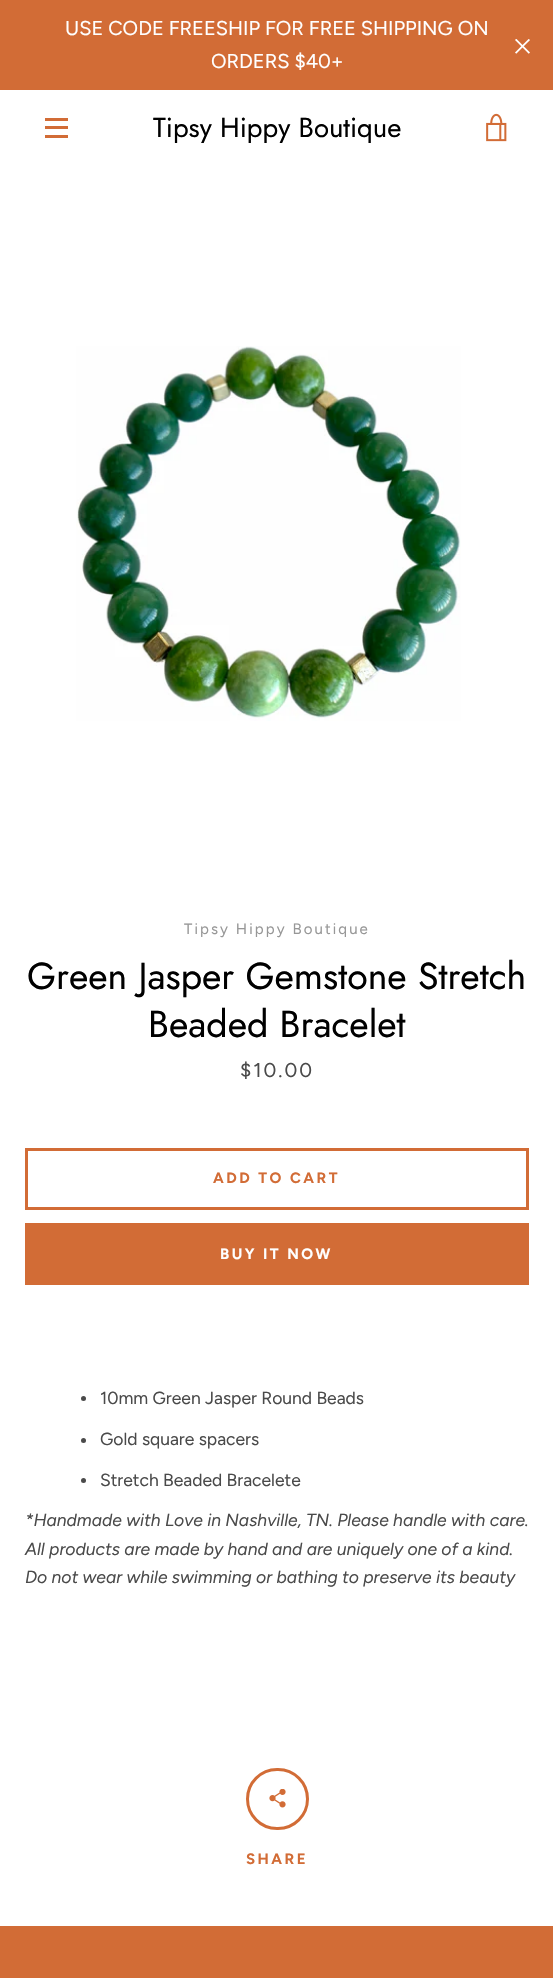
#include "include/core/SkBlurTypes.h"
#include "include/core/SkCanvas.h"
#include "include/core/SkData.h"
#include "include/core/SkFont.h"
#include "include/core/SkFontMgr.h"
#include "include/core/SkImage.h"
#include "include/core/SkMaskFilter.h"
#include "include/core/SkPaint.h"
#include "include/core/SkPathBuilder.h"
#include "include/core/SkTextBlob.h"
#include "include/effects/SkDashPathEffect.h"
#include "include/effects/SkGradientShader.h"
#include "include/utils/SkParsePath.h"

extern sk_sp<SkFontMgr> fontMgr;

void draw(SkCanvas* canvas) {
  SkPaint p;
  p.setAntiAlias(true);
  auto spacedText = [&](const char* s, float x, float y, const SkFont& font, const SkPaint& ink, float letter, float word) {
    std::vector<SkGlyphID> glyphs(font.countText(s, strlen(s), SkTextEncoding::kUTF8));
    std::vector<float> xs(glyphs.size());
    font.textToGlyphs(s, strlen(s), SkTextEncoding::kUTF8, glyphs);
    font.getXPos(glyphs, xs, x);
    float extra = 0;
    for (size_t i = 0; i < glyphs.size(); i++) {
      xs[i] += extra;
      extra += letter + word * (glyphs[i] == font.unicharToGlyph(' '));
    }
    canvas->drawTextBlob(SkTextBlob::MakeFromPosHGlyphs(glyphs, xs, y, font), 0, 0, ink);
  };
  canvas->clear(SK_ColorWHITE);
  p.setColor(SkColorSetRGB(210, 108, 54));
  canvas->drawRect(SkRect::MakeLTRB(0, 0, 553, 90), p);
  canvas->drawImageRect(SkImages::DeferredFromEncodedData(SkData::MakeFromFileName("images/1.png")), SkRect::MakeLTRB(515, 39, 530, 54), SkSamplingOptions());
  canvas->drawRect(SkRect::MakeLTRB(45, 118, 68, 121), p);
  canvas->drawRect(SkRect::MakeLTRB(45, 126, 68, 129), p);
  canvas->drawRect(SkRect::MakeLTRB(45, 135, 68, 138), p);
  canvas->drawImageRect(SkImages::DeferredFromEncodedData(SkData::MakeFromFileName("images/2.png")), SkRect::MakeLTRB(486, 113, 507, 142), SkSamplingOptions());
  canvas->drawImageRect(SkImages::DeferredFromEncodedData(SkData::MakeFromFileName("images/3.png")), SkRect::MakeLTRB(76, 346, 461, 721), SkSamplingOptions());
  p.setStyle(SkPaint::kStroke_Style);
  p.setStrokeWidth(3);
  canvas->drawRect(SkRect::MakeLTRB(26.5f, 1149.5f, 527.5f, 1208.5f), p);
  p.setStyle(SkPaint::kFill_Style);
  canvas->drawRect(SkRect::MakeLTRB(25, 1223, 529, 1285), p);
  p.setColor(SkColorSetRGB(74, 74, 74));
  canvas->drawCircle(83.5f, 1398.5f, 2.5f, p);
  canvas->drawCircle(83.5f, 1440.5f, 2.5f, p);
  canvas->drawCircle(83.5f, 1480.5f, 2.5f, p);
  p.setStyle(SkPaint::kStroke_Style);
  p.setColor(SkColorSetRGB(210, 108, 54));
  canvas->drawRoundRect(SkRect::MakeLTRB(247.5f, 1769.5f, 307.5f, 1828.5f), 29.5f, 29.5f, p);
  canvas->drawImageRect(SkImages::DeferredFromEncodedData(SkData::MakeFromFileName("images/4.png")), SkRect::MakeLTRB(269, 1789, 286, 1808), SkSamplingOptions());
  p.setStyle(SkPaint::kFill_Style);
  canvas->drawRect(SkRect::MakeLTRB(0, 1926, 553, 1978), p);
  SkFont font1(fontMgr->matchFamilyStyle("Figtree", SkFontStyle::Normal()), 20);
  font1.setSubpixel(true);
  p.setColor(SK_ColorWHITE);
  canvas->drawString("USE CODE FREESHIP FOR FREE SHIPPING ON", 65, 35, font1, p);
  canvas->drawString("ORDERS $40+", 211, 68, font1, p);
  SkFont font2(fontMgr->matchFamilyStyle("Jost", SkFontStyle::Normal()), 27.5f);
  font2.setSubpixel(true);
  p.setColor(SK_ColorBLACK);
  canvas->drawString("Tipsy Hippy Boutique", 153, 137, font2, p);
  SkFont font3(fontMgr->matchFamilyStyle("Figtree", SkFontStyle::Normal()), 15);
  font3.setSubpixel(true);
  p.setColor(SkColorSetRGB(151, 151, 151));
  spacedText("Tipsy Hippy Boutique", 184, 934, font3, p, 2.1f, 0);
  SkFont font4(fontMgr->matchFamilyStyle("Jost", SkFontStyle::Normal()), 37.5f);
  font4.setSubpixel(true);
  p.setColor(SK_ColorBLACK);
  canvas->drawString("Green Jasper Gemstone Stretch", 27, 989, font4, p);
  canvas->drawString("Beaded Bracelet", 148, 1037, font4, p);
  p.setColor(SkColorSetRGB(74, 74, 74));
  spacedText("$10.00", 240, 1077, font1, p, 2, 0);
  SkFont font5(fontMgr->matchFamilyStyle("Figtree", SkFontStyle::Bold()), 15);
  font5.setSubpixel(true);
  p.setColor(SkColorSetRGB(210, 108, 54));
  spacedText("ADD TO CART", 213, 1183, font5, p, 2.5f, 0);
  p.setColor(SK_ColorWHITE);
  spacedText("BUY IT NOW", 220, 1259, font5, p, 2.5f, 0);
  SkFont font6(fontMgr->matchFamilyStyle("Figtree", SkFontStyle::Normal()), 17.5f);
  font6.setSubpixel(true);
  p.setColor(SkColorSetRGB(74, 74, 74));
  canvas->drawString("10mm Green Jasper Round Beads", 100, 1404, font6, p);
  canvas->drawString("Gold square spacers", 100, 1445, font6, p);
  canvas->drawString("Stretch Beaded Bracelete", 100, 1486, font6, p);
  SkFont font7(fontMgr->matchFamilyStyle("Figtree", SkFontStyle::Italic()), 17.5f);
  font7.setSubpixel(true);
  canvas->drawString("*Handmade with Love in Nashville, TN. Please handle with care.", 25, 1526, font7, p);
  canvas->drawString("All products are made by hand and are uniquely one of a kind.", 25, 1555, font7, p);
  canvas->drawString("Do not wear while swimming or bathing to preserve its beauty", 25, 1583, font7, p);
  p.setColor(SkColorSetRGB(210, 108, 54));
  spacedText("SHARE", 246, 1864, font5, p, 2.5f, 0);
}
